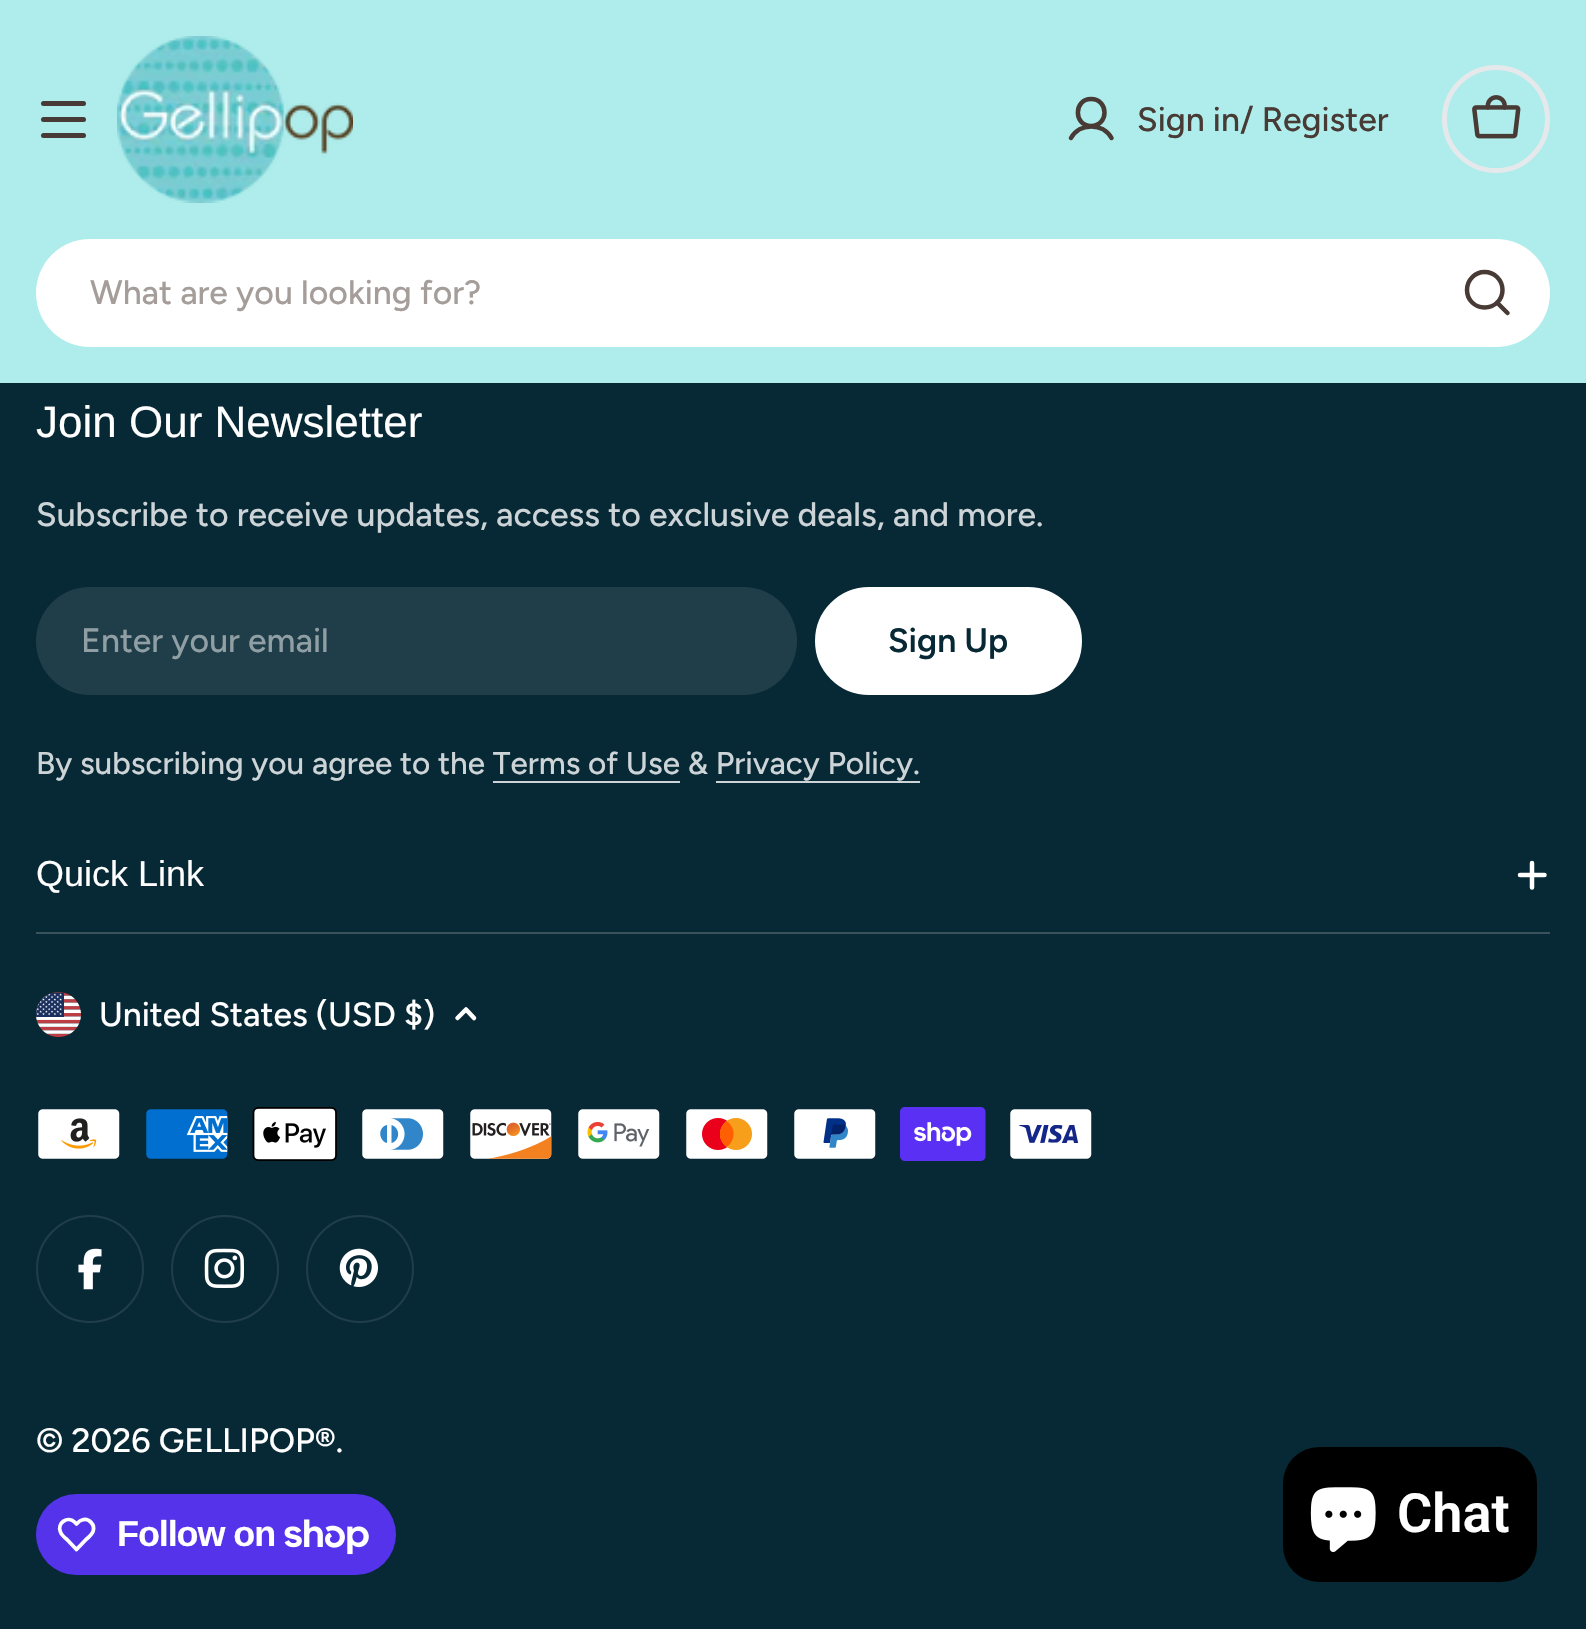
#include "include/core/SkBlurTypes.h"
#include "include/core/SkCanvas.h"
#include "include/core/SkData.h"
#include "include/core/SkFont.h"
#include "include/core/SkFontMgr.h"
#include "include/core/SkImage.h"
#include "include/core/SkMaskFilter.h"
#include "include/core/SkPaint.h"
#include "include/core/SkPathBuilder.h"
#include "include/core/SkTextBlob.h"
#include "include/effects/SkDashPathEffect.h"
#include "include/effects/SkGradientShader.h"
#include "include/utils/SkParsePath.h"

extern sk_sp<SkFontMgr> fontMgr;

void draw(SkCanvas* canvas) {
  SkPaint p;
  p.setAntiAlias(true);
  auto spacedText = [&](const char* s, float x, float y, const SkFont& font, const SkPaint& ink, float letter, float word) {
    std::vector<SkGlyphID> glyphs(font.countText(s, strlen(s), SkTextEncoding::kUTF8));
    std::vector<float> xs(glyphs.size());
    font.textToGlyphs(s, strlen(s), SkTextEncoding::kUTF8, glyphs);
    font.getXPos(glyphs, xs, x);
    float extra = 0;
    for (size_t i = 0; i < glyphs.size(); i++) {
      xs[i] += extra;
      extra += letter + word * (glyphs[i] == font.unicharToGlyph(' '));
    }
    canvas->drawTextBlob(SkTextBlob::MakeFromPosHGlyphs(glyphs, xs, y, font), 0, 0, ink);
  };
  canvas->clear(SkColorSetRGB(7, 40, 53));
  p.setColor(SkColorSetRGB(174, 237, 235));
  canvas->drawRect(SkRect::MakeLTRB(0, 0, 1586, 383), p);
  p.setColor(SkColorSetRGB(72, 58, 53));
  canvas->drawRoundRect(SkRect::MakeLTRB(41, 117, 86, 122), 2.5f, 2.5f, p);
  canvas->drawRoundRect(SkRect::MakeLTRB(41, 101, 86, 106), 2.5f, 2.5f, p);
  canvas->drawRoundRect(SkRect::MakeLTRB(41, 133, 86, 138), 2.5f, 2.5f, p);
  canvas->drawImageRect(SkImages::DeferredFromEncodedData(SkData::MakeFromFileName("images/1.png")), SkRect::MakeLTRB(117, 36, 353, 203), SkSamplingOptions());
  p.setStyle(SkPaint::kStroke_Style);
  p.setStrokeWidth(4.5f);
  p.setStrokeCap(SkPaint::kRound_Cap);
  p.setStrokeJoin(SkPaint::kRound_Join);
  canvas->drawPath(SkPathBuilder().moveTo(1091, 126).cubicTo(1109, 126, 1109, 99, 1091, 99).cubicTo(1073.5f, 99, 1073.5f, 126, 1091, 126).close().moveTo(1071, 138).cubicTo(1079.5f, 122.5f, 1103, 122.5f, 1111.5f, 138).detach(), p);
  p.setStrokeWidth(5);
  p.setStrokeCap(SkPaint::kButt_Cap);
  p.setStrokeJoin(SkPaint::kMiter_Join);
  p.setColor(SkColorSetRGB(230, 233, 235));
  canvas->drawCircle(1496, 119, 51.5f, p);
  canvas->drawImageRect(SkImages::DeferredFromEncodedData(SkData::MakeFromFileName("images/2.png")), SkRect::MakeLTRB(1472, 95, 1521, 139), SkSamplingOptions());
  p.setStyle(SkPaint::kFill_Style);
  p.setColor(SK_ColorWHITE);
  canvas->drawRoundRect(SkRect::MakeLTRB(36, 239, 1550, 347), 54, 54, p);
  p.setStyle(SkPaint::kStroke_Style);
  p.setStrokeWidth(4.5f);
  p.setStrokeCap(SkPaint::kRound_Cap);
  p.setStrokeJoin(SkPaint::kRound_Join);
  p.setColor(SkColorSetRGB(72, 58, 53));
  canvas->drawPath(SkPathBuilder().moveTo(1484.5f, 307.5f).cubicTo(1494.5f, 307.5f, 1502.5f, 300, 1502.5f, 290).cubicTo(1502.5f, 280, 1494.5f, 272, 1484.5f, 272).cubicTo(1475, 272, 1467, 280, 1467, 290).cubicTo(1467, 300, 1475, 307.5f, 1484.5f, 307.5f).close().moveTo(1497, 302.5f).lineTo(1507.5f, 313).detach(), p);
  p.setStyle(SkPaint::kFill_Style);
  p.setColor(SkColorSetRGB(32, 62, 73));
  canvas->drawRoundRect(SkRect::MakeLTRB(36, 587, 797, 695), 54, 54, p);
  p.setColor(SK_ColorWHITE);
  canvas->drawRoundRect(SkRect::MakeLTRB(816, 588, 1081, 694), 53, 53, p);
  p.setStyle(SkPaint::kStroke_Style);
  p.setStrokeWidth(2);
  p.setStrokeCap(SkPaint::kButt_Cap);
  p.setStrokeJoin(SkPaint::kMiter_Join);
  canvas->drawRoundRect(SkRect::MakeLTRB(816, 588, 1081, 694), 53, 53, p);
  p.setStyle(SkPaint::kFill_Style);
  p.setColor(SkColorSetRGB(205, 212, 215));
  canvas->drawRect(SkRect::MakeLTRB(493, 781, 680, 783), p);
  canvas->drawRect(SkRect::MakeLTRB(716, 781, 920, 783), p);
  p.setColor(SkColorSetRGB(57, 83, 93));
  canvas->drawRect(SkRect::MakeLTRB(36, 932, 1550, 934), p);
  p.setStyle(SkPaint::kStroke_Style);
  p.setStrokeWidth(4.5f);
  p.setStrokeCap(SkPaint::kRound_Cap);
  p.setStrokeJoin(SkPaint::kRound_Join);
  p.setColor(SK_ColorWHITE);
  canvas->drawPath(SkPathBuilder().moveTo(1520, 875).lineTo(1544.5f, 875).moveTo(1532, 863).lineTo(1532, 887.5f).detach(), p);
  canvas->drawImageRect(SkImages::DeferredFromEncodedData(SkData::MakeFromFileName("images/3.png")), SkRect::MakeLTRB(36, 992, 81, 1037), SkSamplingOptions());
  canvas->drawPath(SkPathBuilder().moveTo(457.5f, 1018).lineTo(466, 1009.5f).lineTo(474, 1018).detach(), p);
  canvas->drawImageRect(SkImages::DeferredFromEncodedData(SkData::MakeFromFileName("images/4.png")), SkRect::MakeLTRB(38, 1109, 120, 1159), SkSamplingOptions());
  canvas->drawImageRect(SkImages::DeferredFromEncodedData(SkData::MakeFromFileName("images/5.png")), SkRect::MakeLTRB(146, 1109, 228, 1159), SkSamplingOptions());
  canvas->drawImageRect(SkImages::DeferredFromEncodedData(SkData::MakeFromFileName("images/6.png")), SkRect::MakeLTRB(252, 1107, 337, 1161), SkSamplingOptions());
  canvas->drawImageRect(SkImages::DeferredFromEncodedData(SkData::MakeFromFileName("images/7.png")), SkRect::MakeLTRB(362, 1109, 444, 1159), SkSamplingOptions());
  canvas->drawImageRect(SkImages::DeferredFromEncodedData(SkData::MakeFromFileName("images/8.png")), SkRect::MakeLTRB(470, 1109, 552, 1159), SkSamplingOptions());
  canvas->drawImageRect(SkImages::DeferredFromEncodedData(SkData::MakeFromFileName("images/9.png")), SkRect::MakeLTRB(578, 1109, 660, 1159), SkSamplingOptions());
  canvas->drawImageRect(SkImages::DeferredFromEncodedData(SkData::MakeFromFileName("images/10.png")), SkRect::MakeLTRB(686, 1109, 768, 1159), SkSamplingOptions());
  canvas->drawImageRect(SkImages::DeferredFromEncodedData(SkData::MakeFromFileName("images/11.png")), SkRect::MakeLTRB(794, 1109, 876, 1159), SkSamplingOptions());
  canvas->drawImageRect(SkImages::DeferredFromEncodedData(SkData::MakeFromFileName("images/12.png")), SkRect::MakeLTRB(900, 1107, 986, 1161), SkSamplingOptions());
  canvas->drawImageRect(SkImages::DeferredFromEncodedData(SkData::MakeFromFileName("images/13.png")), SkRect::MakeLTRB(1010, 1109, 1092, 1159), SkSamplingOptions());
  p.setStrokeWidth(2);
  p.setStrokeCap(SkPaint::kButt_Cap);
  p.setStrokeJoin(SkPaint::kMiter_Join);
  p.setColor(SkColorSetRGB(32, 62, 73));
  canvas->drawCircle(90, 1269, 53, p);
  canvas->drawImageRect(SkImages::DeferredFromEncodedData(SkData::MakeFromFileName("images/14.png")), SkRect::MakeLTRB(78, 1248, 102, 1290), SkSamplingOptions());
  canvas->drawCircle(225, 1269, 53, p);
  canvas->drawImageRect(SkImages::DeferredFromEncodedData(SkData::MakeFromFileName("images/15.png")), SkRect::MakeLTRB(204, 1248, 244, 1288), SkSamplingOptions());
  canvas->drawCircle(360, 1269, 53, p);
  canvas->drawImageRect(SkImages::DeferredFromEncodedData(SkData::MakeFromFileName("images/16.png")), SkRect::MakeLTRB(339, 1248, 378, 1287), SkSamplingOptions());
  p.setStyle(SkPaint::kFill_Style);
  p.setColor(SkColorSetRGB(84, 51, 235));
  canvas->drawRoundRect(SkRect::MakeLTRB(36, 1494, 396, 1575), 40.5f, 40.5f, p);
  p.setStyle(SkPaint::kStroke_Style);
  p.setStrokeWidth(3.8f);
  p.setStrokeJoin(SkPaint::kRound_Join);
  p.setColor(SK_ColorWHITE);
  canvas->drawPath(SkPathBuilder().moveTo(74.5f, 1522).lineTo(76.5f, 1524).cubicTo(78, 1522.5f, 79.5f, 1520.5f, 82, 1520).cubicTo(89, 1517.5f, 95.5f, 1525, 93, 1531.5f).cubicTo(91.5f, 1535, 88.5f, 1537.5f, 86, 1539.5f).lineTo(76.5f, 1549.5f).lineTo(67, 1539.5f).cubicTo(64.5f, 1537.5f, 61.5f, 1535, 60.5f, 1532).cubicTo(56.5f, 1523, 68, 1515.5f, 74.5f, 1522).close().detach(), p);
  canvas->drawImageRect(SkImages::DeferredFromEncodedData(SkData::MakeFromFileName("images/17.png")), SkRect::MakeLTRB(284, 1519, 369, 1555), SkSamplingOptions());
  p.setStyle(SkPaint::kFill_Style);
  p.setColor(SK_ColorBLACK);
  canvas->drawRoundRect(SkRect::MakeLTRB(1283, 1447, 1537, 1582), 36, 36, p);
  canvas->drawImageRect(SkImages::DeferredFromEncodedData(SkData::MakeFromFileName("images/18.png")), SkRect::MakeLTRB(1310, 1487, 1376, 1552), SkSamplingOptions());
  SkFont font1(fontMgr->matchFamilyStyle("Figtree", SkFontStyle(500, SkFontStyle::kNormal_Width, SkFontStyle::kUpright_Slant)), 33.75f);
  font1.setSubpixel(true);
  p.setColor(SkColorSetRGB(72, 58, 53));
  canvas->drawString("Sign in/ Register", 1137, 131, font1, p);
  p.setColor(SkColorSetRGB(164, 157, 154));
  canvas->drawString("What are you looking for?", 90, 304, font1, p);
  SkFont font2(fontMgr->matchFamilyStyle("Liberation Sans", SkFontStyle::Normal()), 44);
  font2.setSubpixel(true);
  p.setColor(SK_ColorWHITE);
  canvas->drawString("Join Our Newsletter", 36, 437, font2, p);
  p.setColor(SkColorSetRGB(205, 212, 215));
  canvas->drawString("Subscribe to receive updates, access to exclusive deals, and more.", 36, 526, font1, p);
  p.setColor(SkColorSetRGB(144, 159, 164));
  canvas->drawString("Enter your email", 81, 652, font1, p);
  SkFont font3(fontMgr->matchFamilyStyle("Figtree", SkFontStyle(600, SkFontStyle::kNormal_Width, SkFontStyle::kUpright_Slant)), 33.75f);
  font3.setSubpixel(true);
  p.setColor(SkColorSetRGB(7, 40, 53));
  canvas->drawString("Sign Up", 888, 652, font3, p);
  SkFont font4(fontMgr->matchFamilyStyle("Figtree", SkFontStyle(500, SkFontStyle::kNormal_Width, SkFontStyle::kUpright_Slant)), 31.5f);
  font4.setSubpixel(true);
  p.setColor(SkColorSetRGB(205, 212, 215));
  canvas->drawString("By subscribing you agree to the Terms of Use & Privacy Policy.", 36, 774, font4, p);
  SkFont font5(fontMgr->matchFamilyStyle("Liberation Sans", SkFontStyle::Normal()), 36);
  font5.setSubpixel(true);
  p.setColor(SK_ColorWHITE);
  canvas->drawString("Quick Link", 36, 886, font5, p);
  canvas->drawString("United States (USD $)", 99, 1026, font1, p);
  canvas->drawString("© 2026 GELLIPOP®.", 36, 1452, font1, p);
  SkFont font6(fontMgr->matchFamilyStyle("Liberation Sans", SkFontStyle::Bold()), 36);
  font6.setSubpixel(true);
  spacedText("Follow on", 117, 1546, font6, p, -1.1f, 0);
  SkFont font7(fontMgr->matchFamilyStyle("Roboto", SkFontStyle(600, SkFontStyle::kNormal_Width, SkFontStyle::kUpright_Slant)), 54);
  font7.setSubpixel(true);
  canvas->drawString("Chat", 1397, 1532, font7, p);
}
